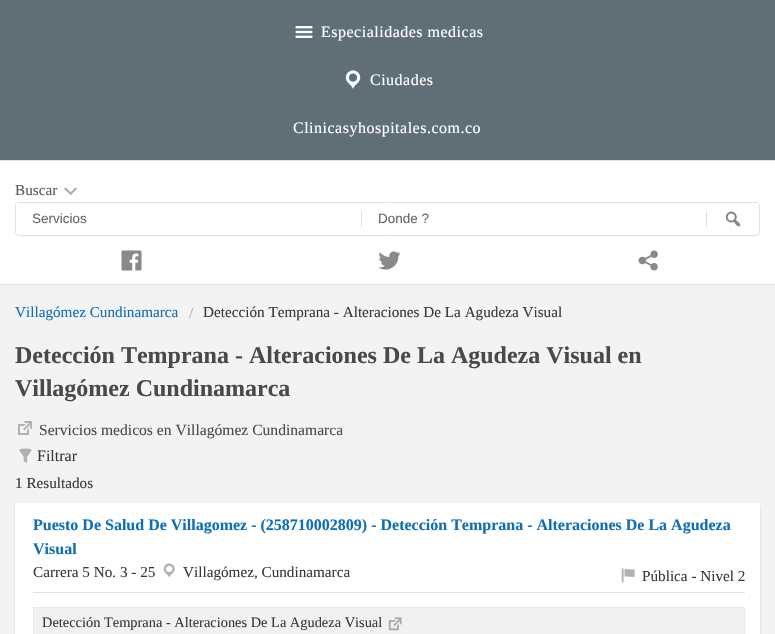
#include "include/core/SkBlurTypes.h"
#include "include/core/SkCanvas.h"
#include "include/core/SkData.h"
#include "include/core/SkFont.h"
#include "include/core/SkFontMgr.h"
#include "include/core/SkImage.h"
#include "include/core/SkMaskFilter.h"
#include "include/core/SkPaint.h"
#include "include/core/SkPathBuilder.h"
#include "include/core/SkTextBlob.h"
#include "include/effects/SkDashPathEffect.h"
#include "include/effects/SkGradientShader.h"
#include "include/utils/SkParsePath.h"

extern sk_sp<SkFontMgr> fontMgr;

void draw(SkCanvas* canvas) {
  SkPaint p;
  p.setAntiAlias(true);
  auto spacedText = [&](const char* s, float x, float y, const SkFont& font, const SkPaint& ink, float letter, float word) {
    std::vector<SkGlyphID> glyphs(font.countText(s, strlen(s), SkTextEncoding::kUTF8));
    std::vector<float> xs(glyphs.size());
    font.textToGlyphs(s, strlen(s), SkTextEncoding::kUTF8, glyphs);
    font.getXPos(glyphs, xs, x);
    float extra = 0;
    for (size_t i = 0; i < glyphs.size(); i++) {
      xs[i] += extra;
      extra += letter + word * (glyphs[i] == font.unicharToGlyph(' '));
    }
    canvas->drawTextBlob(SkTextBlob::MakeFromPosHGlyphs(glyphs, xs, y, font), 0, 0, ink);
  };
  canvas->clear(SkColorSetRGB(243, 243, 243));
  p.setColor(SkColorSetRGB(95, 111, 117));
  canvas->drawRect(SkRect::MakeLTRB(0, 0, 775, 160), p);
  canvas->drawImageRect(SkImages::DeferredFromEncodedData(SkData::MakeFromFileName("images/1.png")), SkRect::MakeLTRB(295, 26, 313, 38), SkSamplingOptions());
  canvas->drawImageRect(SkImages::DeferredFromEncodedData(SkData::MakeFromFileName("images/2.png")), SkRect::MakeLTRB(345, 70, 361, 89), SkSamplingOptions());
  p.setColor(SK_ColorWHITE);
  canvas->drawRect(SkRect::MakeLTRB(0, 161, 775, 284), p);
  p.setColor(SkColorSetRGB(225, 225, 225));
  canvas->drawRect(SkRect::MakeLTRB(0, 160, 775, 161), p);
  canvas->drawRect(SkRect::MakeLTRB(0, 284, 775, 285), p);
  canvas->drawImageRect(SkImages::DeferredFromEncodedData(SkData::MakeFromFileName("images/3.png")), SkRect::MakeLTRB(64, 187, 78, 196), SkSamplingOptions());
  p.setStyle(SkPaint::kStroke_Style);
  p.setStrokeWidth(1);
  canvas->drawRoundRect(SkRect::MakeLTRB(15.5f, 202.5f, 759.5f, 235.5f), 3.5f, 3.5f, p);
  p.setStyle(SkPaint::kFill_Style);
  p.setColor(SK_ColorWHITE);
  canvas->drawRect(SkRect::MakeLTRB(16, 203, 19, 234), p);
  p.setColor(SkColorSetRGB(225, 225, 225));
  canvas->drawRect(SkRect::MakeLTRB(361, 211, 362, 227), p);
  canvas->drawRect(SkRect::MakeLTRB(706, 211, 707, 227), p);
  canvas->drawImageRect(SkImages::DeferredFromEncodedData(SkData::MakeFromFileName("images/4.png")), SkRect::MakeLTRB(725, 211, 741, 227), SkSamplingOptions());
  canvas->drawImageRect(SkImages::DeferredFromEncodedData(SkData::MakeFromFileName("images/5.png")), SkRect::MakeLTRB(121, 250, 142, 271), SkSamplingOptions());
  canvas->drawImageRect(SkImages::DeferredFromEncodedData(SkData::MakeFromFileName("images/6.png")), SkRect::MakeLTRB(378, 251, 401, 270), SkSamplingOptions());
  canvas->drawImageRect(SkImages::DeferredFromEncodedData(SkData::MakeFromFileName("images/7.png")), SkRect::MakeLTRB(638, 250, 658, 271), SkSamplingOptions());
  canvas->drawImageRect(SkImages::DeferredFromEncodedData(SkData::MakeFromFileName("images/8.png")), SkRect::MakeLTRB(18, 421, 32, 435), SkSamplingOptions());
  canvas->drawImageRect(SkImages::DeferredFromEncodedData(SkData::MakeFromFileName("images/9.png")), SkRect::MakeLTRB(19, 448, 32, 463), SkSamplingOptions());
  p.setColor(SkColorSetARGB(51, 0, 0, 0));
  p.setMaskFilter(SkMaskFilter::MakeBlur(kNormal_SkBlurStyle, 1));
  canvas->drawRoundRect(SkRect::MakeLTRB(15, 505, 760, 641), 4, 4, p);
  p.setMaskFilter(nullptr);
  p.setColor(SK_ColorWHITE);
  canvas->drawRoundRect(SkRect::MakeLTRB(15, 503, 760, 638), 4, 4, p);
  canvas->drawImageRect(SkImages::DeferredFromEncodedData(SkData::MakeFromFileName("images/10.png")), SkRect::MakeLTRB(163, 563, 175, 578), SkSamplingOptions());
  canvas->drawImageRect(SkImages::DeferredFromEncodedData(SkData::MakeFromFileName("images/11.png")), SkRect::MakeLTRB(621, 568, 635, 583), SkSamplingOptions());
  p.setColor(SkColorSetRGB(225, 225, 225));
  canvas->drawRect(SkRect::MakeLTRB(33, 592, 745, 593), p);
  p.setColor(SkColorSetRGB(241, 241, 241));
  canvas->drawRect(SkRect::MakeLTRB(33.5f, 607.5f, 744.5f, 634.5f), p);
  p.setStyle(SkPaint::kStroke_Style);
  p.setColor(SkColorSetRGB(233, 233, 233));
  canvas->drawRect(SkRect::MakeLTRB(33.5f, 607.5f, 744.5f, 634.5f), p);
  canvas->drawImageRect(SkImages::DeferredFromEncodedData(SkData::MakeFromFileName("images/12.png")), SkRect::MakeLTRB(388, 617, 402, 631), SkSamplingOptions());
  SkFont font1(fontMgr->matchFamilyStyle("Liberation Serif", SkFontStyle::Normal()), 16);
  font1.setSubpixel(true);
  p.setStyle(SkPaint::kFill_Style);
  p.setColor(SK_ColorWHITE);
  spacedText("Especialidades medicas", 321, 37, font1, p, 0.5f, 0);
  spacedText("Ciudades", 370, 85, font1, p, 0.5f, 0);
  spacedText("Clinicasyhospitales.com.co", 293, 133, font1, p, 0.5f, 0);
  SkFont font2(fontMgr->matchFamilyStyle("Liberation Serif", SkFontStyle::Normal()), 15.2f);
  font2.setSubpixel(true);
  p.setColor(SkColorSetRGB(89, 89, 89));
  canvas->drawString("Buscar", 15, 195, font2, p);
  SkFont font3(fontMgr->matchFamilyStyle("Liberation Sans", SkFontStyle::Normal()), 13.5f);
  font3.setSubpixel(true);
  p.setColor(SkColorSetRGB(102, 102, 102));
  canvas->drawString("Servicios", 32, 223, font3, p);
  canvas->drawString("Donde ?", 378, 223, font3, p);
  p.setColor(SkColorSetRGB(14, 110, 184));
  canvas->drawString("Villagómez Cundinamarca", 15, 317, font2, p);
  p.setColor(SkColorSetRGB(170, 170, 170));
  canvas->drawString("/", 189, 318, font2, p);
  p.setColor(SkColorSetRGB(57, 57, 57));
  canvas->drawString("Detección Temprana - Alteraciones De La Agudeza Visual", 203, 317, font2, p);
  SkFont font4(fontMgr->matchFamilyStyle("Liberation Serif", SkFontStyle::Bold()), 24);
  font4.setSubpixel(true);
  p.setColor(SkColorSetRGB(73, 73, 73));
  canvas->drawString("Detección Temprana - Alteraciones De La Agudeza Visual en", 15, 363, font4, p);
  canvas->drawString("Villagómez Cundinamarca", 15, 396, font4, p);
  SkFont font5(fontMgr->matchFamilyStyle("Liberation Serif", SkFontStyle::Normal()), 15.6f);
  font5.setSubpixel(true);
  canvas->drawString("Servicios medicos en Villagómez Cundinamarca", 39, 435, font5, p);
  p.setColor(SkColorSetRGB(57, 57, 57));
  canvas->drawString("Filtrar", 37, 461, font1, p);
  canvas->drawString("1 Resultados", 15, 488, font2, p);
  SkFont font6(fontMgr->matchFamilyStyle("Liberation Serif", SkFontStyle::Bold()), 16);
  font6.setSubpixel(true);
  p.setColor(SkColorSetRGB(14, 110, 184));
  canvas->drawString("Puesto De Salud De Villagomez - (258710002809) - Detección Temprana - Alteraciones De La Agudeza", 33, 530, font6, p);
  canvas->drawString("Visual", 33, 554, font6, p);
  p.setColor(SkColorSetRGB(57, 57, 57));
  canvas->drawString("Carrera 5 No. 3 - 25", 33, 577, font2, p);
  canvas->drawString("Villagómez, Cundinamarca", 183, 577, font2, p);
  canvas->drawString("Pública - Nivel 2", 642, 581, font2, p);
  SkFont font7(fontMgr->matchFamilyStyle("Liberation Serif", SkFontStyle::Normal()), 14.4f);
  font7.setSubpixel(true);
  canvas->drawString("Detección Temprana - Alteraciones De La Agudeza Visual", 42, 627, font7, p);
}
